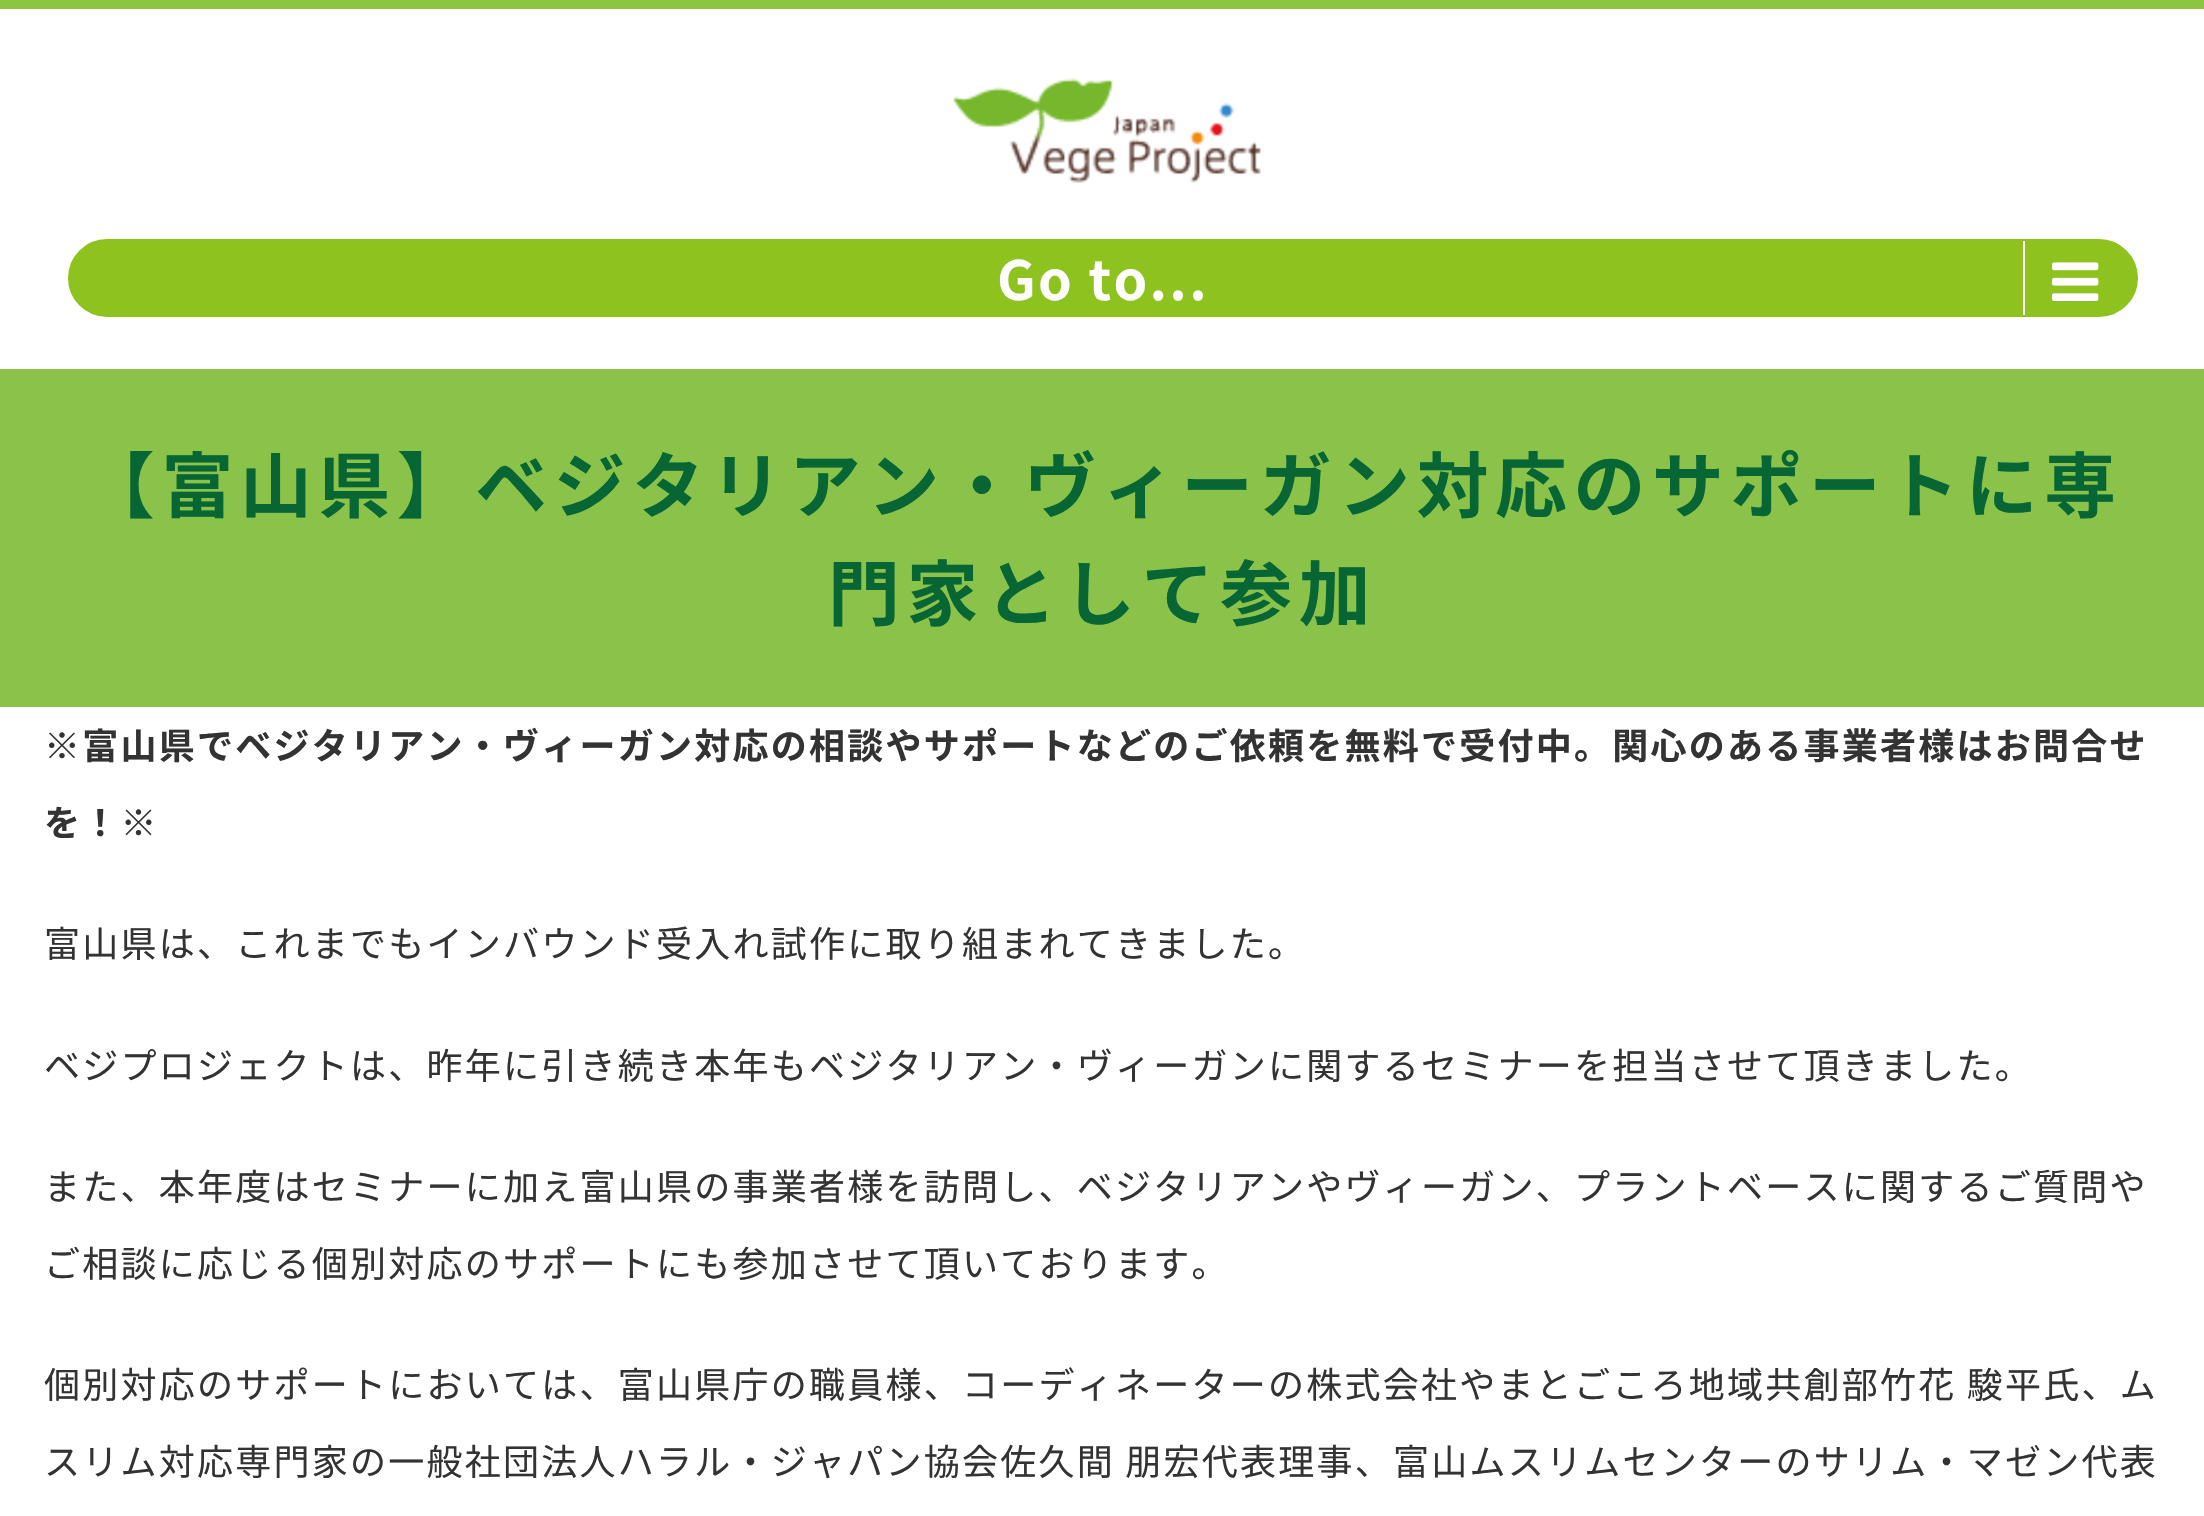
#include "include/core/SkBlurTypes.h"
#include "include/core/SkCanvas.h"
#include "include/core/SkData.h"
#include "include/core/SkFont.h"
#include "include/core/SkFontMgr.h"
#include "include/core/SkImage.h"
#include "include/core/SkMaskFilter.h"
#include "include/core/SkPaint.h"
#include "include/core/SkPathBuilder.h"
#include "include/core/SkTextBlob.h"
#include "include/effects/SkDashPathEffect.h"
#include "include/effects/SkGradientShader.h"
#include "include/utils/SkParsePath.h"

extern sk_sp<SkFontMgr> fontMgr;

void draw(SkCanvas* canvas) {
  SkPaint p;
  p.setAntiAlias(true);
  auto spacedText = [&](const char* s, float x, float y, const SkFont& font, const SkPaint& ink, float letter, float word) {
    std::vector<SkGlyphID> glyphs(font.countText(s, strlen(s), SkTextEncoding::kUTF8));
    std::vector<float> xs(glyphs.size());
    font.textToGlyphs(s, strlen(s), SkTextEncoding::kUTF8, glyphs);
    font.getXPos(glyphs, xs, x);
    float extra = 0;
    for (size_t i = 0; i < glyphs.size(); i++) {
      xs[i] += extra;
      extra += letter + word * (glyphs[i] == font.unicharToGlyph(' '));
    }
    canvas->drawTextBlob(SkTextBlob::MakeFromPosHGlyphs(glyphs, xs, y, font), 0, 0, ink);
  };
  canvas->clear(SK_ColorWHITE);
  p.setColor(SkColorSetRGB(140, 198, 63));
  canvas->drawRect(SkRect::MakeLTRB(0, 0, 2204, 9), p);
  canvas->drawImageRect(SkImages::DeferredFromEncodedData(SkData::MakeFromFileName("images/1.png")), SkRect::MakeLTRB(952, 78, 1261, 183), SkSamplingOptions());
  p.setColor(SkColorSetRGB(142, 195, 31));
  canvas->drawRoundRect(SkRect::MakeLTRB(69, 240, 2137, 316), 38, 38, p);
  p.setStyle(SkPaint::kStroke_Style);
  p.setStrokeWidth(2);
  canvas->drawRoundRect(SkRect::MakeLTRB(69, 240, 2137, 316), 38, 38, p);
  p.setStyle(SkPaint::kFill_Style);
  p.setColor(SK_ColorWHITE);
  canvas->drawRect(SkRect::MakeLTRB(2023, 241, 2025, 315), p);
  canvas->drawImageRect(SkImages::DeferredFromEncodedData(SkData::MakeFromFileName("images/2.png")), SkRect::MakeLTRB(2052, 262, 2099, 301), SkSamplingOptions());
  p.setColor(SkColorSetRGB(139, 195, 74));
  canvas->drawRect(SkRect::MakeLTRB(0, 369, 2204, 707), p);
  SkFont font1(fontMgr->matchFamilyStyle("Noto Sans JP", SkFontStyle::Bold()), 54);
  font1.setSubpixel(true);
  p.setColor(SK_ColorWHITE);
  spacedText("Go to...", 997, 300, font1, p, 2.25f, 0);
  SkFont font2(fontMgr->matchFamilyStyle("Noto Sans JP", SkFontStyle::Bold()), 71.7f);
  font2.setSubpixel(true);
  p.setColor(SkColorSetRGB(7, 102, 51));
  spacedText("【富山県】ベジタリアン・ヴィーガン対応のサポートに専", 83, 512, font2, p, 6.75f, 0);
  spacedText("門家として参加", 828, 620, font2, p, 6.75f, 0);
  SkFont font3(fontMgr->matchFamilyStyle("Noto Sans JP", SkFontStyle::Bold()), 36);
  font3.setSubpixel(true);
  p.setColor(SkColorSetRGB(51, 51, 51));
  spacedText("※富山県でベジタリアン・ヴィーガン対応の相談やサポートなどのご依頼を無料で受付中。関心のある事業者様はお問合せ", 44, 759, font3, p, 2.25f, 0);
  spacedText("を！※", 44, 836, font3, p, 2.25f, 0);
  SkFont font4(fontMgr->matchFamilyStyle("Noto Sans JP", SkFontStyle::Normal()), 36);
  font4.setSubpixel(true);
  spacedText("富山県は、これまでもインバウンド受入れ試作に取り組まれてきました。", 44, 957, font4, p, 2.25f, 0);
  spacedText("ベジプロジェクトは、昨年に引き続き本年もベジタリアン・ヴィーガンに関するセミナーを担当させて頂きました。", 44, 1079, font4, p, 2.25f, 0);
  spacedText("また、本年度はセミナーに加え富山県の事業者様を訪問し、ベジタリアンやヴィーガン、プラントベースに関するご質問や", 44, 1200, font4, p, 2.25f, 0);
  spacedText("ご相談に応じる個別対応のサポートにも参加させて頂いております。", 44, 1277, font4, p, 2.25f, 0);
  spacedText("個別対応のサポートにおいては、富山県庁の職員様、コーディネーターの株式会社やまとごころ地域共創部竹花 駿平氏、ム", 44, 1398, font4, p, 2.25f, 0);
  spacedText("スリム対応専門家の一般社団法人ハラル・ジャパン協会佐久間 朋宏代表理事、富山ムスリムセンターのサリム・マゼン代表", 44, 1475, font4, p, 2.25f, 0);
}
